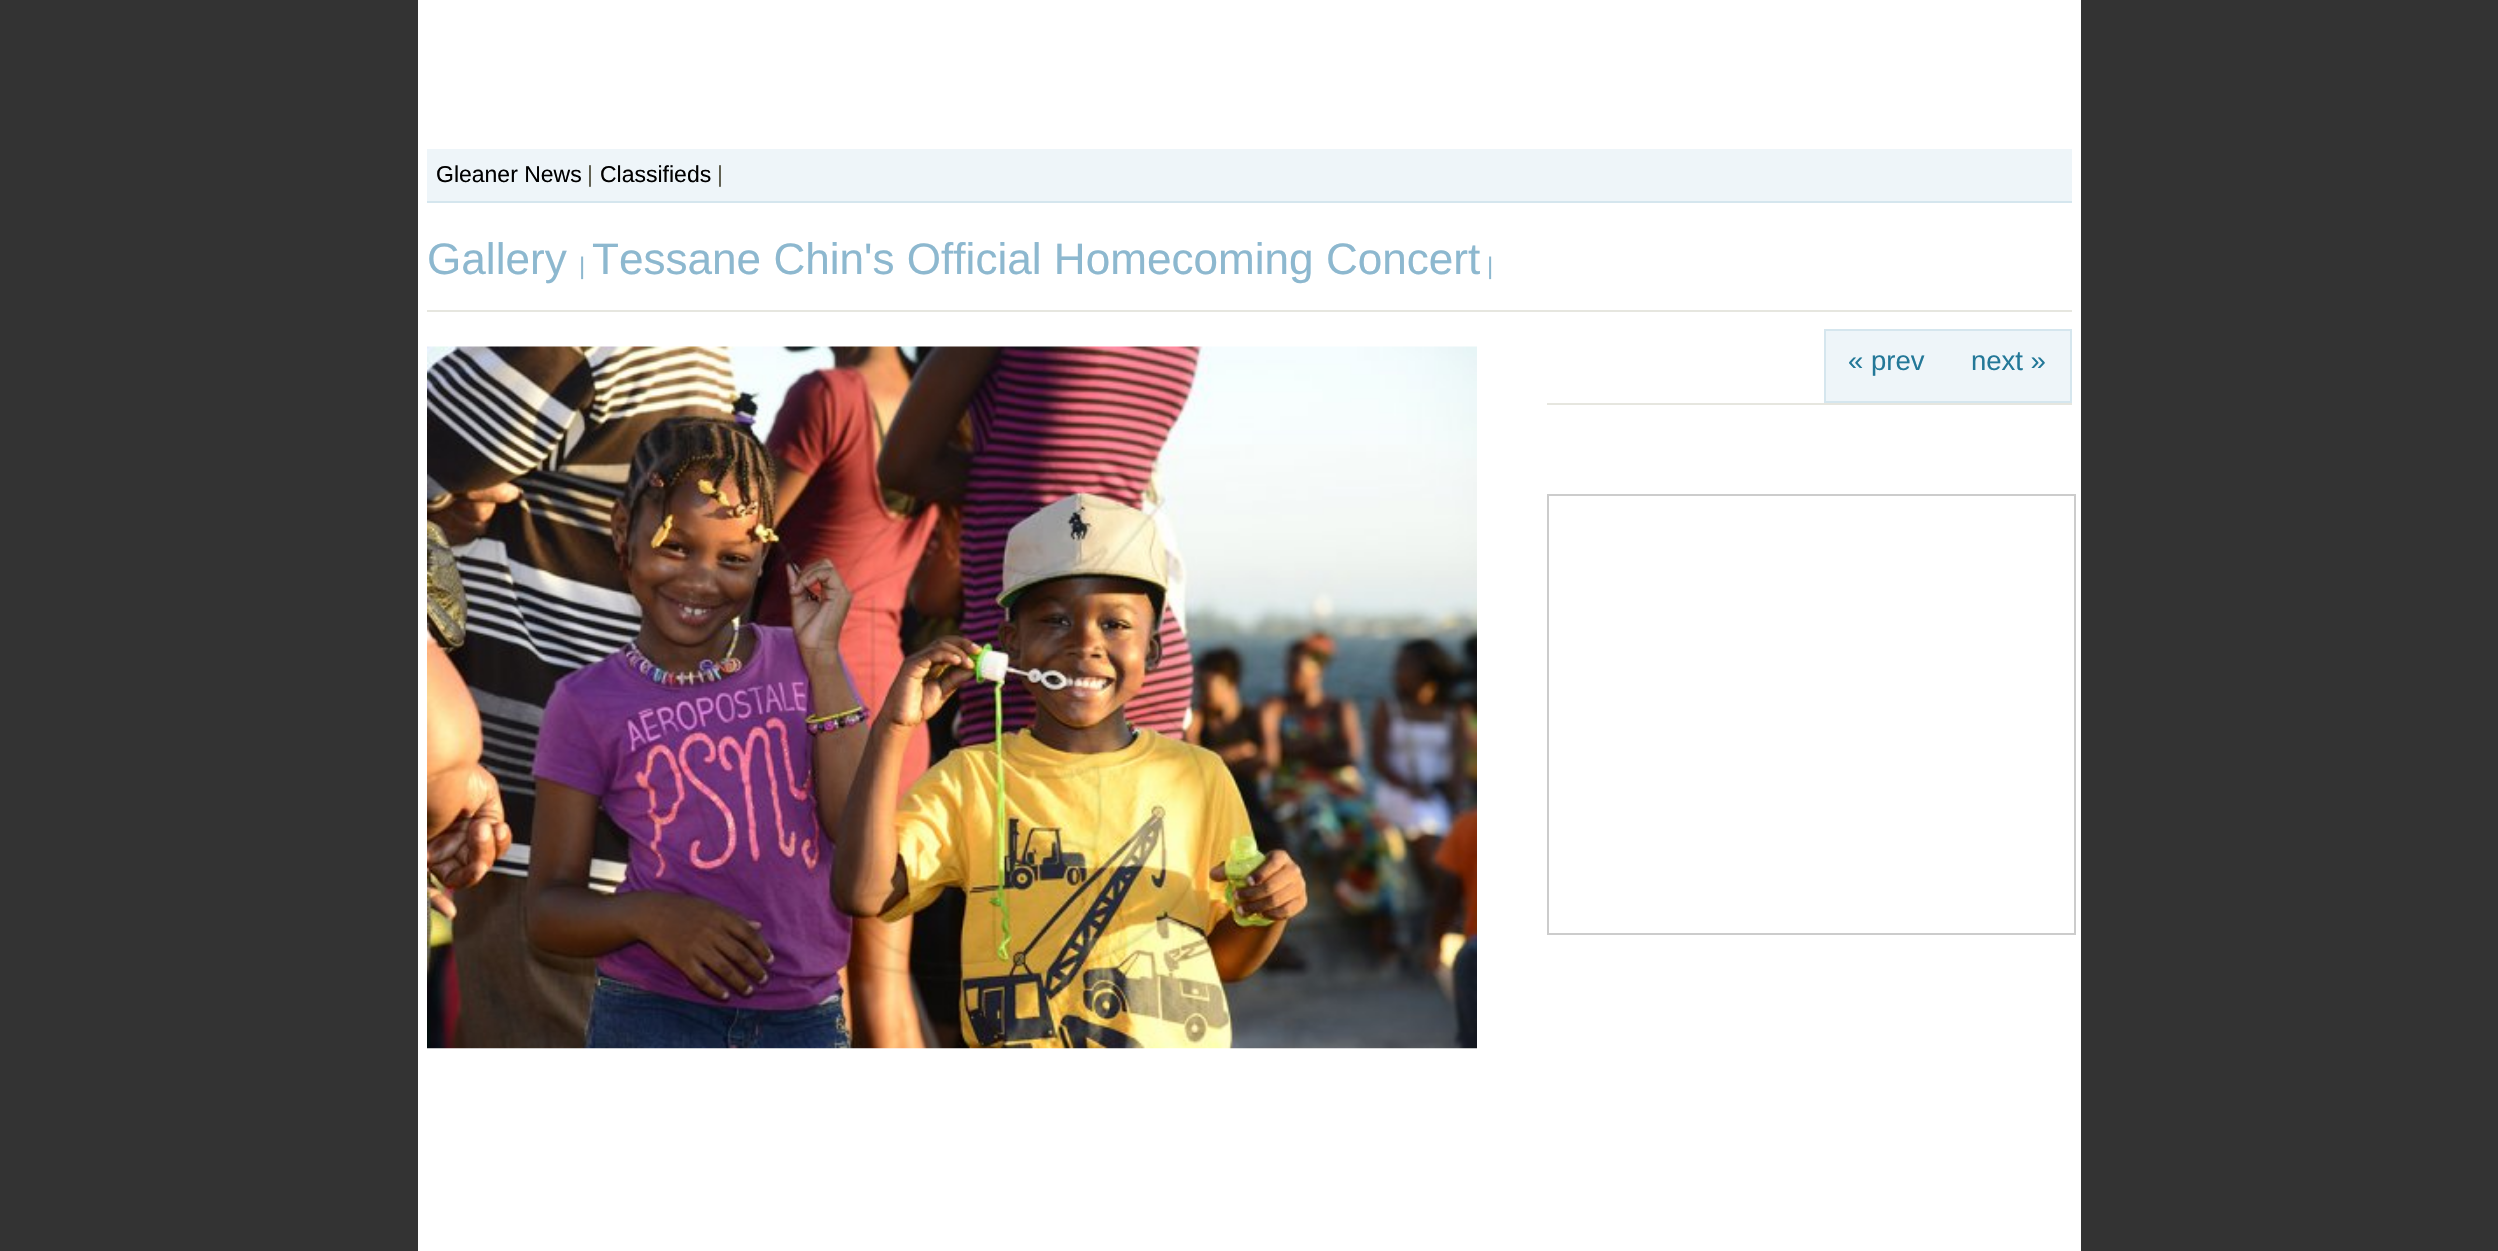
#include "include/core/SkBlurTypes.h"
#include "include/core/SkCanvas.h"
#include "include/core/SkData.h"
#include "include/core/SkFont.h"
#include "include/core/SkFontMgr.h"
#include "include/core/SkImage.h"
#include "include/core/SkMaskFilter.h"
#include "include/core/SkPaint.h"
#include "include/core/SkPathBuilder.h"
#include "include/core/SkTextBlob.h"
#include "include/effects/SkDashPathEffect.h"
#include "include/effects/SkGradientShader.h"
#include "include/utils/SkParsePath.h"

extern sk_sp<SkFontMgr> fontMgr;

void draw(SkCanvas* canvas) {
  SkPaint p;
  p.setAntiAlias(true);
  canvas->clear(SkColorSetRGB(51, 51, 51));
  p.setColor(SK_ColorWHITE);
  canvas->drawRect(SkRect::MakeLTRB(418, 0, 2081, 1251), p);
  p.setColor(SkColorSetRGB(238, 245, 249));
  canvas->drawRect(SkRect::MakeLTRB(427, 149, 2072, 201), p);
  p.setColor(SkColorSetRGB(213, 230, 238));
  canvas->drawRect(SkRect::MakeLTRB(427, 201, 2072, 203), p);
  p.setColor(SkColorSetRGB(230, 230, 223));
  canvas->drawRect(SkRect::MakeLTRB(427, 310, 2072, 312), p);
  canvas->drawImageRect(SkImages::DeferredFromEncodedData(SkData::MakeFromFileName("images/1.png")), SkRect::MakeLTRB(427, 346, 1477, 1049), SkSamplingOptions());
  p.setColor(SkColorSetRGB(238, 245, 249));
  canvas->drawRect(SkRect::MakeLTRB(1825, 330, 2071, 402), p);
  p.setStyle(SkPaint::kStroke_Style);
  p.setStrokeWidth(2);
  p.setColor(SkColorSetRGB(213, 230, 238));
  canvas->drawRect(SkRect::MakeLTRB(1825, 330, 2071, 402), p);
  p.setStyle(SkPaint::kFill_Style);
  p.setColor(SkColorSetRGB(230, 230, 223));
  canvas->drawRect(SkRect::MakeLTRB(1547, 403, 2072, 405), p);
  p.setStyle(SkPaint::kStroke_Style);
  p.setColor(SkColorSetRGB(204, 204, 204));
  canvas->drawRect(SkRect::MakeLTRB(1548, 495, 2075, 934), p);
  SkFont font1(fontMgr->matchFamilyStyle("Liberation Sans", SkFontStyle::Normal()), 23);
  font1.setSubpixel(true);
  p.setStyle(SkPaint::kFill_Style);
  p.setColor(SK_ColorBLACK);
  canvas->drawString("Gleaner News", 436, 182, font1, p);
  p.setColor(SkColorSetRGB(90, 90, 75));
  canvas->drawString("|", 587, 182, font1, p);
  p.setColor(SK_ColorBLACK);
  canvas->drawString("Classifieds", 600, 182, font1, p);
  p.setColor(SkColorSetRGB(90, 90, 75));
  canvas->drawString("|", 717, 182, font1, p);
  SkFont font2(fontMgr->matchFamilyStyle("Liberation Sans", SkFontStyle::Normal()), 44.1f);
  font2.setSubpixel(true);
  p.setColor(SkColorSetRGB(141, 184, 207));
  canvas->drawString("Gallery", 427, 274, font2, p);
  SkFont font3(fontMgr->matchFamilyStyle("Liberation Sans", SkFontStyle::Normal()), 24);
  font3.setSubpixel(true);
  canvas->drawString("|", 579, 274, font3, p);
  canvas->drawString("Tessane Chin's Official Homecoming Concert", 592, 274, font2, p);
  canvas->drawString("|", 1487, 274, font3, p);
  SkFont font4(fontMgr->matchFamilyStyle("Liberation Sans", SkFontStyle::Normal()), 27.5f);
  font4.setSubpixel(true);
  p.setColor(SkColorSetRGB(35, 120, 152));
  canvas->drawString("« prev", 1848, 370, font4, p);
  canvas->drawString("next »", 1971, 370, font4, p);
}
